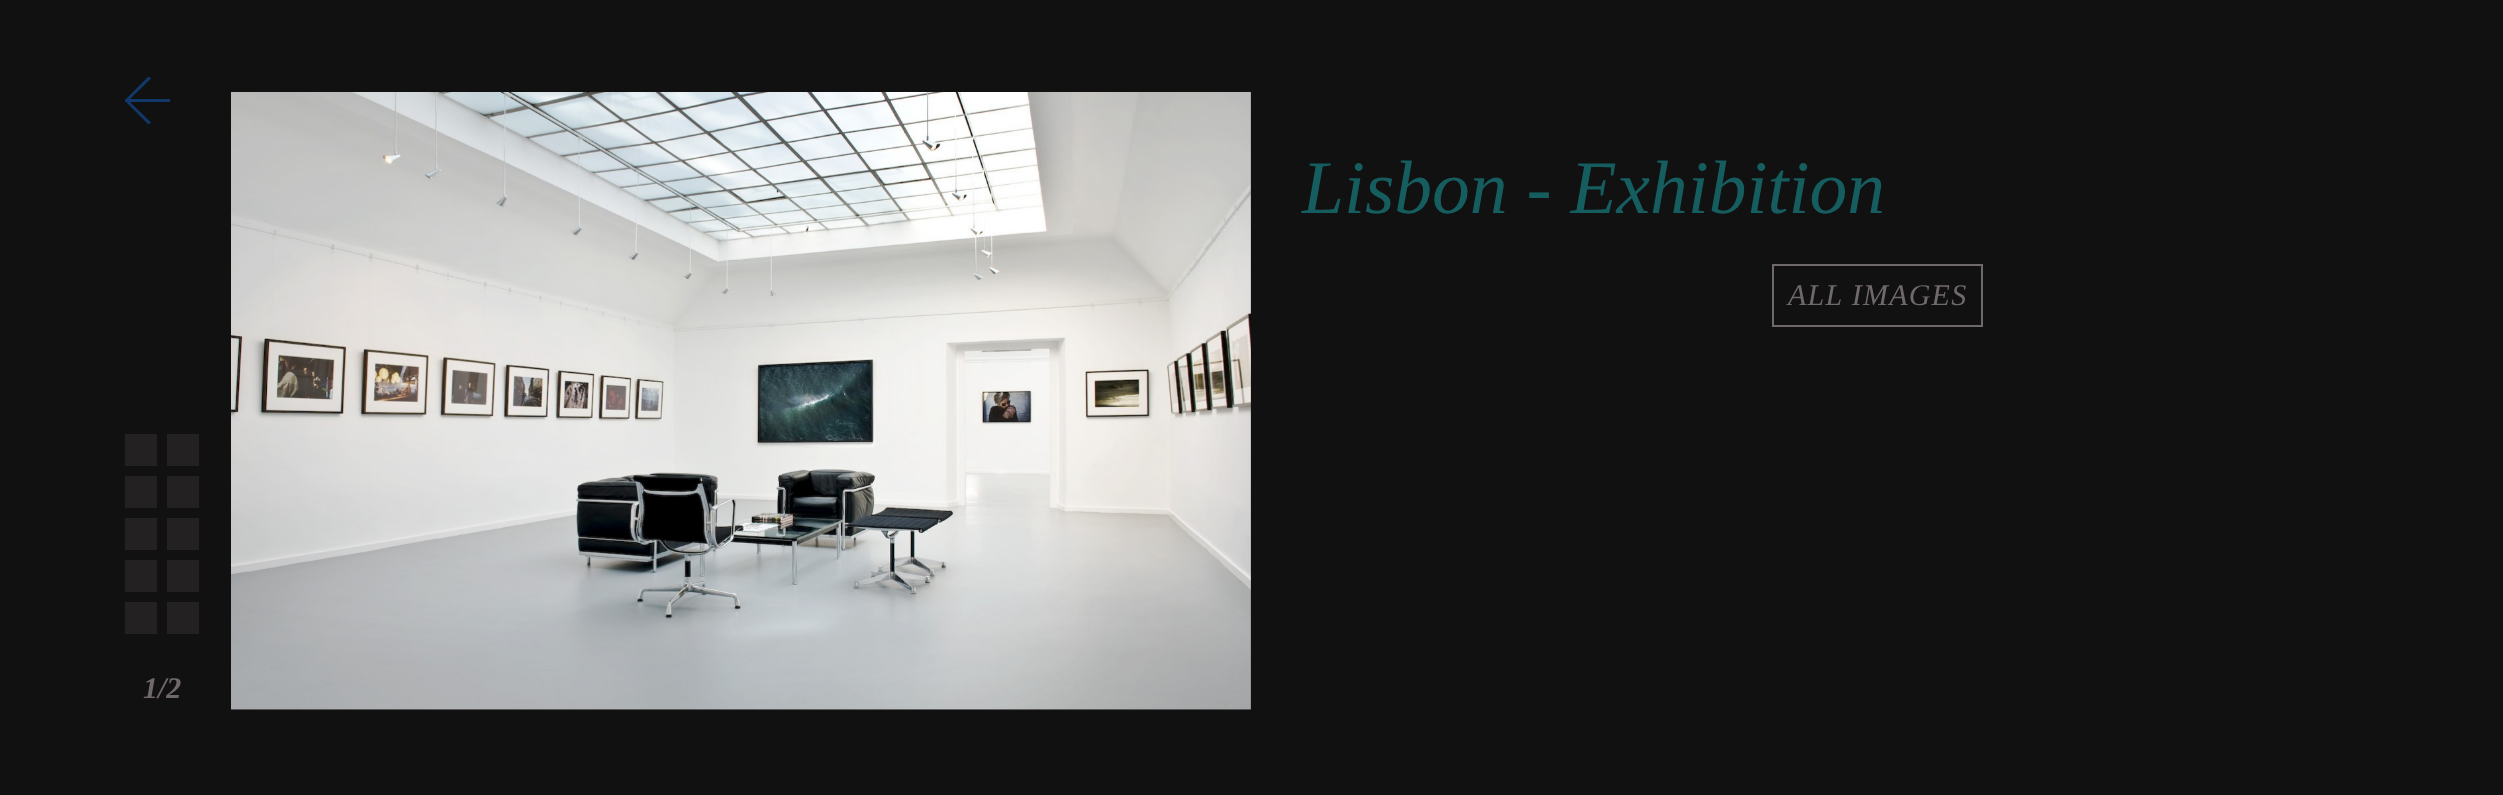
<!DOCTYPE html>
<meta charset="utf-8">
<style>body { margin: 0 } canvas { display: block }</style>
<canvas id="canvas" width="2503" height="795"></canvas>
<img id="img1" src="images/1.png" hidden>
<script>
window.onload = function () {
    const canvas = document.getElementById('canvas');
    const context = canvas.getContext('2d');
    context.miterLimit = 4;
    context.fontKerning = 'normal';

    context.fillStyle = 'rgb(17, 17, 17)';
    context.fillRect(0, 0, 2503, 795);
    context.fillStyle = 'rgb(17, 56, 104)';
    context.fillRect(125, 99, 45, 3);
    context.beginPath();
    context.moveTo(126.5, 98.5);
    context.lineTo(148.5, 76.5);
    context.lineTo(151, 78.5);
    context.lineTo(128.5, 100.5);
    context.closePath();
    context.fill();
    context.beginPath();
    context.moveTo(128.5, 100.5);
    context.lineTo(151, 122.5);
    context.lineTo(148.5, 124.5);
    context.lineTo(126.5, 102.5);
    context.closePath();
    context.fill();
    context.drawImage(document.getElementById('img1'), 231, 92, 1020, 618);
    context.strokeStyle = 'rgb(111, 105, 109)';
    context.lineWidth = 2;
    context.strokeRect(1773, 265, 209, 61);
    context.fillStyle = 'rgb(35, 33, 34)';
    context.fillRect(125, 434, 32, 32);
    context.fillRect(125, 476, 32, 32);
    context.fillRect(125, 518, 32, 32);
    context.fillRect(125, 560, 32, 32);
    context.fillRect(125, 602, 32, 32);
    context.fillRect(167, 434, 32, 32);
    context.fillRect(167, 476, 32, 32);
    context.fillRect(167, 518, 32, 32);
    context.fillRect(167, 560, 32, 32);
    context.fillRect(167, 602, 32, 32);
    context.font = 'italic 75.5px Liberation Serif';
    context.fillStyle = 'rgb(22, 93, 96)';
    context.fillText('Lisbon - Exhibition', 1302, 213);
    context.letterSpacing = '1.25px';
    context.font = 'italic 30px Liberation Serif';
    context.fillStyle = 'rgb(111, 105, 109)';
    context.fillText('ALL IMAGES', 1788, 305);
    context.letterSpacing = '0px';
    context.font = 'italic bold 30px Liberation Serif';
    context.fillText('1/2', 143, 698);
};
</script>
